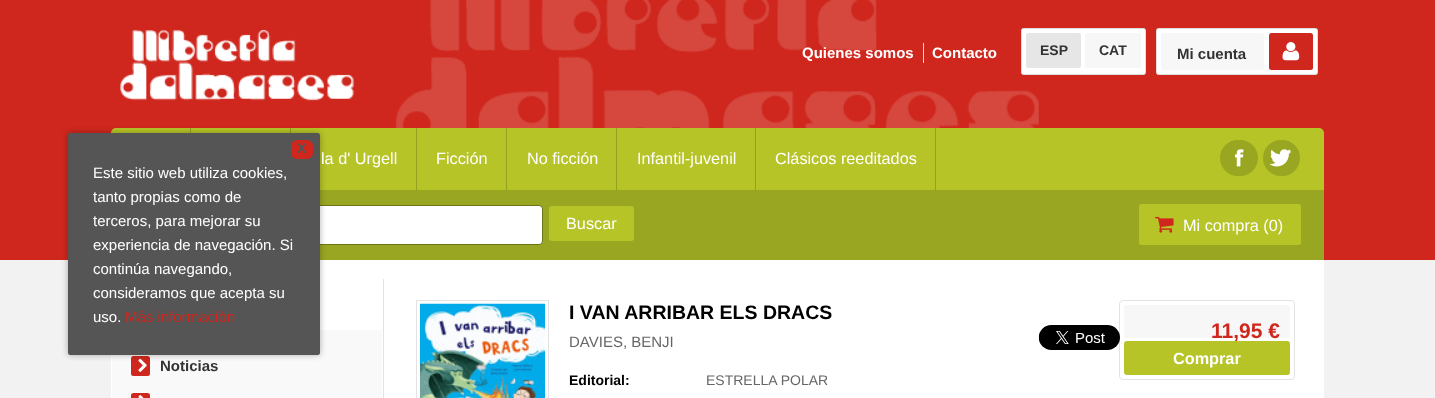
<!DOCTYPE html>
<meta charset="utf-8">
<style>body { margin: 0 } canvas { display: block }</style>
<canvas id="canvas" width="1435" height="398"></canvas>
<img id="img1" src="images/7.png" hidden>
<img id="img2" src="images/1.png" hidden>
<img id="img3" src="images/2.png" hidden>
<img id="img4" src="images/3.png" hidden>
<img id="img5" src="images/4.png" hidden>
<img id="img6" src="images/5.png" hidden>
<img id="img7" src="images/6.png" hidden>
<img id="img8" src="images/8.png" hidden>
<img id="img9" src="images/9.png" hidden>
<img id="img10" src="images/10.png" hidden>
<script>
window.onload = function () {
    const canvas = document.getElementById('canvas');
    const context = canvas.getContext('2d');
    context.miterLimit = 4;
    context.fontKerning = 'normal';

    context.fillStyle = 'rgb(242, 242, 242)';
    context.fillRect(0, 0, 1435, 398);
    context.fillStyle = 'rgb(207, 39, 29)';
    context.fillRect(0, 0, 1435, 260);
    context.fillStyle = 'rgb(182, 196, 39)';
    context.beginPath();
    context.roundRect(111, 128, 1213, 62, [5, 5, 0, 0]);
    context.fill();
    context.fillStyle = 'rgb(148, 160, 32)';
    context.fillRect(190, 128, 1, 5);
    context.fillRect(290, 128, 1, 5);
    context.fillStyle = 'rgb(153, 166, 33)';
    context.fillRect(320, 190, 1004, 70);
    context.fillStyle = 'rgb(255, 255, 255)';
    context.beginPath();
    context.roundRect(130.5, 205.5, 412, 39, 3.5);
    context.fill();
    context.strokeStyle = 'rgb(107, 116, 23)';
    context.stroke();
    context.fillRect(320, 260, 1004, 138);
    context.fillStyle = 'rgb(249, 249, 249)';
    context.beginPath();
    context.rect(111.5, 329.5, 271, 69);
    context.fill();
    context.strokeStyle = 'rgb(255, 255, 255)';
    context.stroke();
    context.fillStyle = 'rgb(207, 39, 29)';
    context.beginPath();
    context.roundRect(131, 356, 19, 20, 2.5);
    context.fill();
    context.drawImage(document.getElementById('img1'), 138, 358, 9, 14);
    context.fillStyle = 'rgba(0, 0, 0, 0.3)';
    context.filter = 'blur(3px)';
    context.beginPath();
    context.roundRect(68, 133, 252, 222, 2.5);
    context.fill();
    context.filter = 'none';
    context.fillStyle = 'rgb(85, 85, 85)';
    context.beginPath();
    context.roundRect(68, 133, 252, 222, 2.5);
    context.fill();
    context.fillStyle = 'rgb(207, 39, 29)';
    context.beginPath();
    context.roundRect(291, 140, 22, 19, 6);
    context.fill();
    context.drawImage(document.getElementById('img2'), 395, 0, 645, 128);
    context.drawImage(document.getElementById('img3'), 120, 30, 234, 71);
    context.fillStyle = 'rgb(221, 221, 221)';
    context.fillRect(923, 43, 1, 20);
    context.fillStyle = 'rgb(255, 255, 255)';
    context.beginPath();
    context.roundRect(1021.5, 28.5, 124, 46, 2);
    context.fill();
    context.strokeStyle = 'rgb(221, 221, 221)';
    context.stroke();
    context.fillStyle = 'rgb(230, 230, 230)';
    context.beginPath();
    context.roundRect(1026, 33, 55, 35, 2.5);
    context.fill();
    context.fillStyle = 'rgb(247, 247, 247)';
    context.beginPath();
    context.roundRect(1085, 33, 56, 35, 2.5);
    context.fill();
    context.fillStyle = 'rgb(255, 255, 255)';
    context.beginPath();
    context.roundRect(1156.5, 28.5, 161, 46, 2);
    context.fill();
    context.stroke();
    context.fillStyle = 'rgb(247, 247, 247)';
    context.beginPath();
    context.roundRect(1161, 33, 103, 37, 2.5);
    context.fill();
    context.fillStyle = 'rgb(207, 39, 29)';
    context.beginPath();
    context.roundRect(1269, 33, 44, 37, 2.5);
    context.fill();
    context.drawImage(document.getElementById('img4'), 1282, 42, 18, 19);
    context.fillStyle = 'rgb(148, 160, 32)';
    context.fillRect(416, 128, 1, 62);
    context.fillRect(506, 128, 1, 62);
    context.fillRect(616, 128, 1, 62);
    context.fillRect(755, 128, 1, 62);
    context.fillRect(935, 128, 1, 62);
    context.fillStyle = 'rgb(153, 166, 33)';
    context.beginPath();
    context.roundRect(1220, 140, 38, 36, 18);
    context.fill();
    context.drawImage(document.getElementById('img5'), 1235, 149, 9, 18);
    context.beginPath();
    context.roundRect(1263, 140, 37, 36, 18);
    context.fill();
    context.drawImage(document.getElementById('img6'), 1270, 149, 21, 18);
    context.fillStyle = 'rgb(182, 196, 39)';
    context.beginPath();
    context.roundRect(549.5, 206.5, 84, 34, 2);
    context.fill();
    context.strokeStyle = 'rgb(182, 196, 39)';
    context.stroke();
    context.beginPath();
    context.roundRect(1139, 204, 162, 41, 2.5);
    context.fill();
    context.drawImage(document.getElementById('img7'), 1155, 216, 19, 17);
    context.fillStyle = 'rgb(227, 227, 227)';
    context.fillRect(383, 279, 1, 119);
    context.fillStyle = 'rgb(207, 39, 29)';
    context.beginPath();
    context.roundRect(131, 393, 19, 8, 2.5);
    context.fill();
    context.drawImage(document.getElementById('img8'), 138, 395, 6, 3);
    context.strokeStyle = 'rgb(227, 227, 227)';
    context.strokeRect(416.5, 300.5, 132, 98);
    context.drawImage(document.getElementById('img9'), 420, 303, 125, 95);
    context.beginPath();
    context.roundRect(1119.5, 300.5, 175, 79, 3.5);
    context.stroke();
    context.drawImage(document.getElementById('img10'), 1038, 325, 82, 25);
    context.fillStyle = 'rgb(247, 247, 247)';
    context.beginPath();
    context.roundRect(1124, 305, 166, 33, 2.5);
    context.fill();
    context.font = 'bold 14px Liberation Sans';
    context.fillStyle = 'rgb(85, 85, 85)';
    context.fillText('X', 297, 153);
    context.font = '15px Liberation Sans';
    context.fillStyle = 'rgb(255, 255, 255)';
    context.fillText('Este sitio web utiliza cookies,', 93, 178);
    context.fillText('tanto propias como de', 93, 202);
    context.fillText('terceros, para mejorar su', 93, 226);
    context.fillText('experiencia de navegación. Si', 93, 250);
    context.fillText('continúa navegando,', 93, 274);
    context.fillText('consideramos que acepta su', 93, 298);
    context.fillText('uso.', 93, 322);
    context.fillStyle = 'rgb(207, 39, 29)';
    context.fillText('Más información', 125, 322);
    context.font = 'bold 15px Liberation Sans';
    context.fillStyle = 'rgb(255, 255, 255)';
    context.fillText('Quienes somos', 802, 58);
    context.fillText('Contacto', 932, 58);
    context.font = 'bold 14px Liberation Sans';
    context.fillStyle = 'rgb(51, 51, 51)';
    context.fillText('ESP', 1040, 55);
    context.fillText('CAT', 1099, 55);
    context.font = 'bold 15px Liberation Sans';
    context.fillText('Mi cuenta', 1177, 59);
    context.font = '16.25px Liberation Sans';
    context.fillStyle = 'rgb(255, 255, 255)';
    context.fillText('la d\' Urgell', 321, 164);
    context.fillText('Ficción', 436, 164);
    context.fillText('No ficción', 527, 164);
    context.fillText('Infantil-juvenil', 637, 164);
    context.fillText('Clásicos reeditados', 775, 164);
    context.fillText('Buscar', 566, 229);
    context.fillText('Mi compra (0)', 1183, 231);
    context.font = 'bold 15px Liberation Sans';
    context.fillStyle = 'rgb(51, 51, 51)';
    context.fillText('Noticias', 160, 371);
    context.font = 'bold 19.5px Liberation Sans';
    context.fillStyle = 'rgb(0, 0, 0)';
    context.fillText('I VAN ARRIBAR ELS DRACS', 569, 319);
    context.font = '15px Liberation Sans';
    context.fillStyle = 'rgb(102, 102, 102)';
    context.fillText('DAVIES, BENJI', 569, 347);
    context.font = 'bold 14px Liberation Sans';
    context.fillStyle = 'rgb(0, 0, 0)';
    context.fillText('Editorial:', 569, 385);
    context.font = '14px Liberation Sans';
    context.fillStyle = 'rgb(102, 102, 102)';
    context.fillText('ESTRELLA POLAR', 706, 385);
    context.font = 'bold 21px Liberation Sans';
    context.fillStyle = 'rgb(207, 39, 29)';
    context.fillText('11,95 €', 1211, 338);
    context.fillStyle = 'rgb(182, 196, 39)';
    context.beginPath();
    context.roundRect(1124.5, 341.5, 165, 33, 2);
    context.fill();
    context.strokeStyle = 'rgb(182, 196, 39)';
    context.stroke();
    context.font = 'bold 16.25px Liberation Sans';
    context.fillStyle = 'rgb(255, 255, 255)';
    context.fillText('Comprar', 1173, 364);
};
</script>
